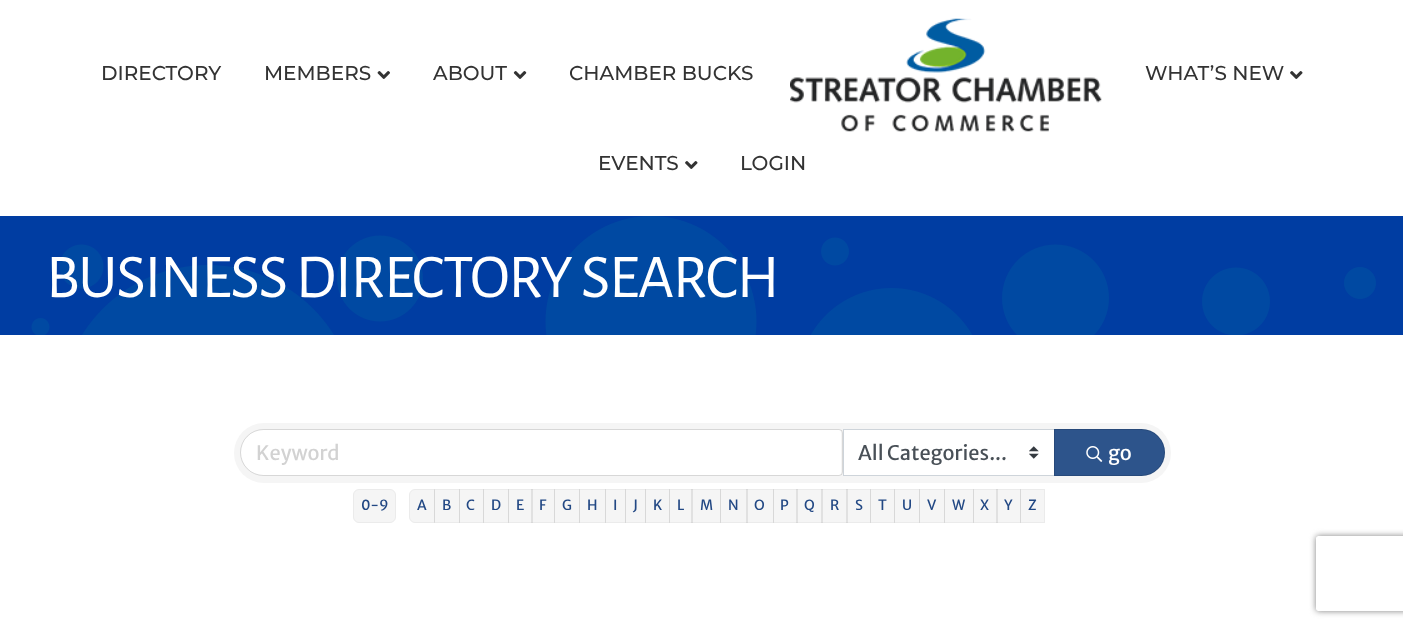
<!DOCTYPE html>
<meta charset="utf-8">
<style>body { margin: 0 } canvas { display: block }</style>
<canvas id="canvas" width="1403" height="628"></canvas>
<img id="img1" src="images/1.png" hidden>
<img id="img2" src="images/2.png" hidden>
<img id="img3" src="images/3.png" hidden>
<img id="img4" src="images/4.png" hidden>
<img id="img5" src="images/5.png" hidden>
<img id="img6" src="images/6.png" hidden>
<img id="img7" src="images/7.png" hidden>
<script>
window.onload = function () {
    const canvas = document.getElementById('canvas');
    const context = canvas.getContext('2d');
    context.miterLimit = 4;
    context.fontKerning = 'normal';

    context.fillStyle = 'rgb(255, 255, 255)';
    context.fillRect(0, 0, 1403, 628);
    context.drawImage(document.getElementById('img1'), 377, 71, 13, 8);
    context.drawImage(document.getElementById('img2'), 513, 71, 14, 8);
    context.drawImage(document.getElementById('img3'), 790, 18, 312, 114);
    context.drawImage(document.getElementById('img4'), 1290, 71, 13, 8);
    context.drawImage(document.getElementById('img4'), 685, 161, 13, 8);
    context.fillStyle = 'rgb(0, 61, 162)';
    context.fillRect(0, 216, 1403, 119);
    context.drawImage(document.getElementById('img5'), 31, 216, 1345, 119);
    context.fillStyle = 'rgb(245, 245, 245)';
    context.beginPath();
    context.roundRect(234, 423, 937, 60, 30);
    context.fill();
    context.fillStyle = 'rgb(255, 255, 255)';
    context.beginPath();
    context.roundRect(241, 430, 600, 45, [22.5, 2.5, 2.5, 22.5]);
    context.fill();
    context.beginPath();
    context.roundRect(240.5, 429.5, 602, 46, [23, 3.5, 3.5, 23]);
    context.strokeStyle = 'rgba(0, 0, 0, 0.12)';
    context.stroke();
    context.fillRect(844, 430, 210, 45);
    context.drawImage(document.getElementById('img6'), 1029, 446, 10, 13);
    context.strokeStyle = 'rgb(206, 212, 218)';
    context.strokeRect(843.5, 429.5, 211, 46);
    context.fillStyle = 'rgb(45, 84, 139)';
    context.beginPath();
    context.roundRect(1054, 429, 111, 47, [0, 23.5, 23.5, 0]);
    context.fill();
    context.beginPath();
    context.roundRect(1054.5, 429.5, 110, 46, [0, 23, 23, 0]);
    context.strokeStyle = 'rgba(0, 0, 0, 0.12)';
    context.stroke();
    context.drawImage(document.getElementById('img7'), 1086, 446, 17, 16);
    context.fillStyle = 'rgb(245, 245, 245)';
    context.beginPath();
    context.roundRect(353.5, 489.5, 42, 33, 5.5);
    context.fill();
    context.strokeStyle = 'rgb(235, 235, 235)';
    context.stroke();
    context.beginPath();
    context.roundRect(409.5, 489.5, 25, 33, [5.5, 0, 0, 5.5]);
    context.fill();
    context.stroke();
    context.fillStyle = 'rgba(0, 0, 0, 0.04)';
    context.fillRect(434, 489, 26, 34);
    context.strokeStyle = 'rgba(0, 0, 0, 0.04)';
    context.strokeRect(434.5, 489.5, 25, 33);
    context.fillRect(459, 489, 25, 34);
    context.strokeRect(459.5, 489.5, 24, 33);
    context.fillRect(483, 489, 26, 34);
    context.strokeRect(483.5, 489.5, 25, 33);
    context.fillRect(508, 489, 25, 34);
    context.strokeRect(508.5, 489.5, 24, 33);
    context.fillRect(531, 489, 24, 34);
    context.strokeRect(531.5, 489.5, 23, 33);
    context.fillRect(554, 489, 26, 34);
    context.strokeRect(554.5, 489.5, 25, 33);
    context.fillRect(579, 489, 27, 34);
    context.strokeRect(579.5, 489.5, 26, 33);
    context.fillRect(605, 489, 21, 34);
    context.strokeRect(605.5, 489.5, 20, 33);
    context.fillRect(625, 489, 21, 34);
    context.strokeRect(625.5, 489.5, 20, 33);
    context.fillRect(645, 489, 25, 34);
    context.strokeRect(645.5, 489.5, 24, 33);
    context.fillRect(669, 489, 24, 34);
    context.strokeRect(669.5, 489.5, 23, 33);
    context.fillRect(691, 489, 30, 34);
    context.strokeRect(691.5, 489.5, 29, 33);
    context.fillRect(720, 489, 28, 34);
    context.strokeRect(720.5, 489.5, 27, 33);
    context.fillRect(746, 489, 28, 34);
    context.strokeRect(746.5, 489.5, 27, 33);
    context.fillRect(773, 489, 25, 34);
    context.strokeRect(773.5, 489.5, 24, 33);
    context.fillRect(796, 489, 27, 34);
    context.strokeRect(796.5, 489.5, 26, 33);
    context.fillRect(821, 489, 27, 34);
    context.strokeRect(821.5, 489.5, 26, 33);
    context.fillRect(846, 489, 25, 34);
    context.strokeRect(846.5, 489.5, 24, 33);
    context.fillRect(870, 489, 25, 34);
    context.strokeRect(870.5, 489.5, 24, 33);
    context.fillRect(894, 489, 26, 34);
    context.strokeRect(894.5, 489.5, 25, 33);
    context.fillRect(919, 489, 26, 34);
    context.strokeRect(919.5, 489.5, 25, 33);
    context.fillRect(944, 489, 30, 34);
    context.strokeRect(944.5, 489.5, 29, 33);
    context.fillRect(973, 489, 25, 34);
    context.strokeRect(973.5, 489.5, 24, 33);
    context.fillRect(996, 489, 25, 34);
    context.strokeRect(996.5, 489.5, 24, 33);
    context.fillRect(1020, 489, 25, 34);
    context.strokeRect(1020.5, 489.5, 24, 33);
    context.save();
    context.beginPath();
    context.moveTo(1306, 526);
    context.lineTo(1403, 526);
    context.lineTo(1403, 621);
    context.lineTo(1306, 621);
    context.closePath();
    context.moveTo(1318.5, 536);
    context.lineTo(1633.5, 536);
    context.bezierCurveTo(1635, 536, 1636, 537, 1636, 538.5);
    context.lineTo(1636, 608.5);
    context.bezierCurveTo(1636, 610, 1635, 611, 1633.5, 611);
    context.lineTo(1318.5, 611);
    context.bezierCurveTo(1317, 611, 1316, 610, 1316, 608.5);
    context.lineTo(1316, 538.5);
    context.bezierCurveTo(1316, 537, 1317, 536, 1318.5, 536);
    context.closePath();
    context.clip('evenodd');
    context.fillStyle = 'rgb(128, 128, 128)';
    context.filter = 'blur(3px)';
    context.beginPath();
    context.roundRect(1316, 536, 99, 75, 2.5);
    context.fill();
    context.filter = 'none';
    context.restore();
    context.font = '500 20px Montserrat';
    context.fillStyle = 'rgb(51, 51, 51)';
    context.fillText('DIRECTORY', 101, 80);
    context.fillText('MEMBERS', 264, 80);
    context.fillText('ABOUT', 433, 80);
    context.fillText('CHAMBER BUCKS', 569, 80);
    context.fillText('WHAT’S NEW', 1145, 80);
    context.fillText('EVENTS', 598, 170);
    context.fillText('LOGIN', 740, 170);
    context.letterSpacing = '-1.25px';
    context.font = '62.5px Alegreya Sans';
    context.fillStyle = 'rgb(255, 255, 255)';
    context.fillText('BUSINESS DIRECTORY SEARCH', 46, 297);
    context.letterSpacing = '0px';
    context.font = '20px Merriweather Sans';
    context.fillStyle = 'rgb(210, 210, 210)';
    context.fillText('Keyword', 256, 460);
    context.fillStyle = 'rgb(73, 80, 87)';
    context.fillText('All Categories...', 858, 460);
    context.fillStyle = 'rgb(255, 255, 255)';
    context.fillText('go', 1108, 460);
    context.font = '14px Merriweather Sans';
    context.fillStyle = 'rgb(34, 72, 132)';
    context.fillText('0-9', 361, 510);
    context.fillText('A', 417, 510);
    context.fillText('B', 442, 510);
    context.fillText('C', 466, 510);
    context.fillText('D', 491, 510);
    context.fillText('E', 516, 510);
    context.fillText('F', 539, 510);
    context.fillText('G', 562, 510);
    context.fillText('H', 587, 510);
    context.fillText('I', 613, 510);
    context.fillText('J', 633, 510);
    context.fillText('K', 653, 510);
    context.fillText('L', 677, 510);
    context.fillText('M', 700, 510);
    context.fillText('N', 728, 510);
    context.fillText('O', 754, 510);
    context.fillText('P', 780, 510);
    context.fillText('Q', 804, 510);
    context.fillText('R', 830, 510);
    context.fillText('S', 855, 510);
    context.fillText('T', 878, 510);
    context.fillText('U', 902, 510);
    context.fillText('V', 927, 510);
    context.fillText('W', 952, 510);
    context.fillText('X', 980, 510);
    context.fillText('Y', 1004, 510);
    context.fillText('Z', 1028, 510);
};
</script>
